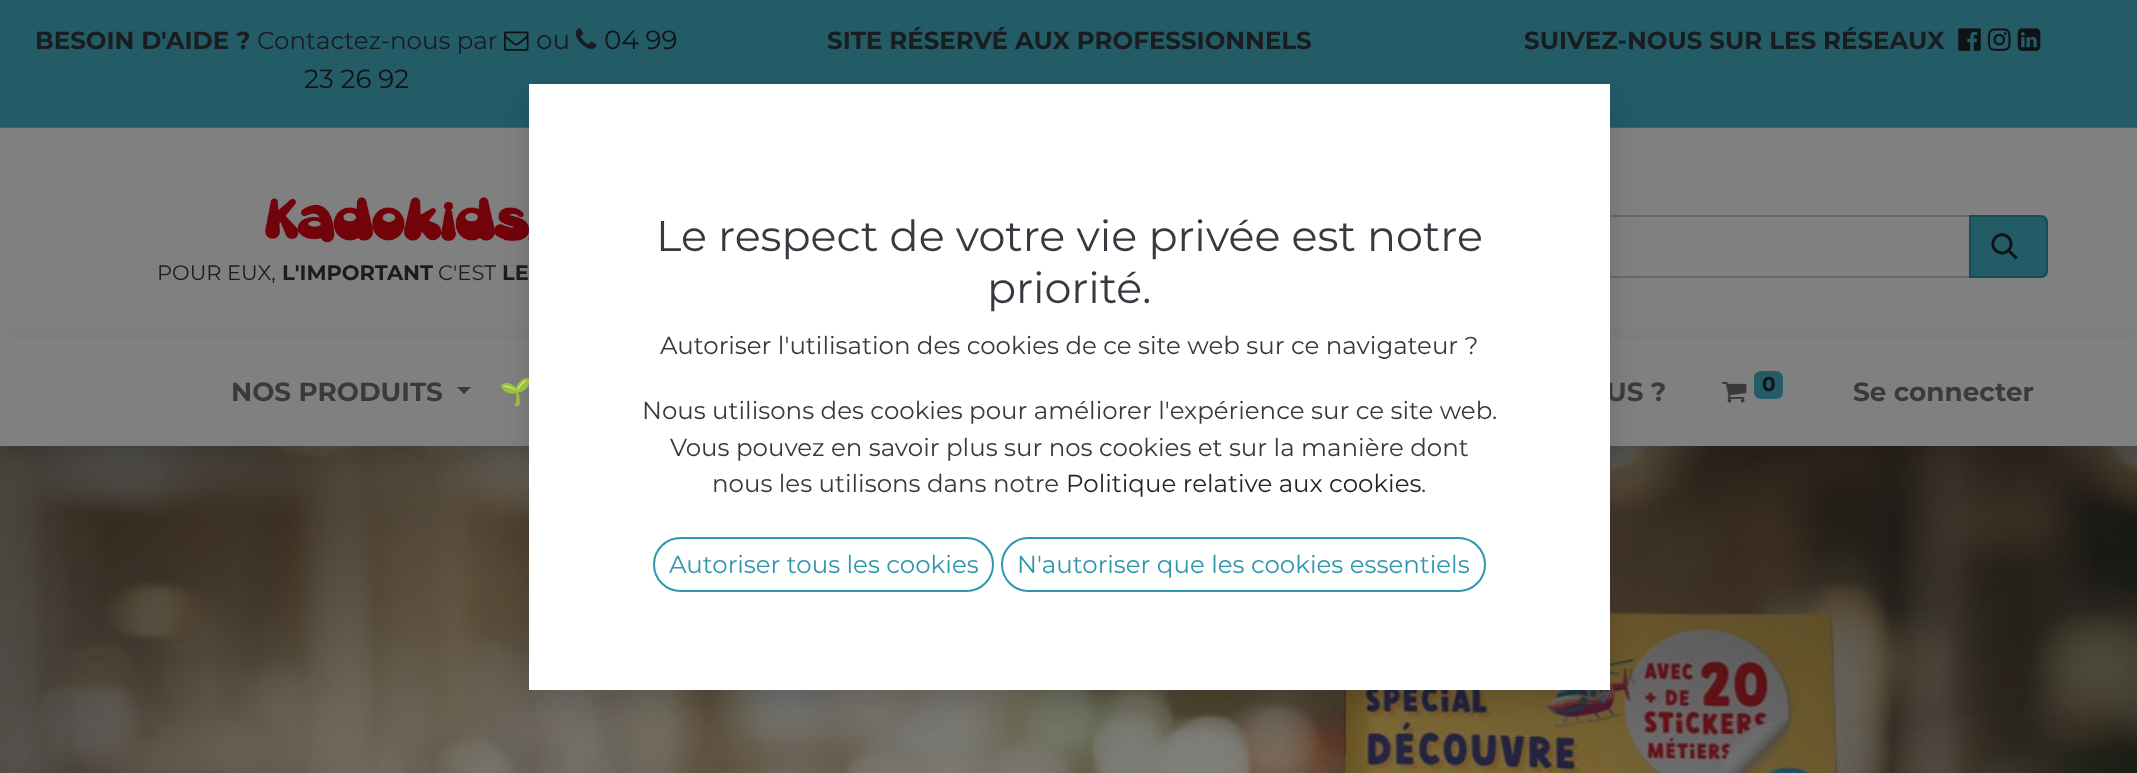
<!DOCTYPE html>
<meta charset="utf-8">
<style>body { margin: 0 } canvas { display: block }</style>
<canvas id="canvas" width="2137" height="773"></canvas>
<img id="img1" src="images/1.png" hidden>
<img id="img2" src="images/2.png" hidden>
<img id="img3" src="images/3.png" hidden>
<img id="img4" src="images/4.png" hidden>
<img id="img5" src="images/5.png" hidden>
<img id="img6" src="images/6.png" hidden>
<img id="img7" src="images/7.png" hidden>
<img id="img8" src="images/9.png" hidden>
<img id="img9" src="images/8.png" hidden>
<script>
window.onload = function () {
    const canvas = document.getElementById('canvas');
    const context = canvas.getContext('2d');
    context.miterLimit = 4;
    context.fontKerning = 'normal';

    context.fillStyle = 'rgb(128, 128, 128)';
    context.fillRect(0, 0, 2137, 773);
    context.fillStyle = 'rgb(35, 91, 103)';
    context.fillRect(0, 0, 2137, 127);
    context.drawImage(document.getElementById('img1'), 504, 31, 25, 20);
    context.drawImage(document.getElementById('img2'), 575, 28, 22, 21);
    context.drawImage(document.getElementById('img3'), 1958, 28, 23, 23);
    context.drawImage(document.getElementById('img4'), 1988, 28, 23, 23);
    context.drawImage(document.getElementById('img5'), 2017, 28, 24, 23);
    context.fillStyle = 'rgb(58, 100, 109)';
    context.fillRect(0, 127, 2137, 1);
    context.drawImage(document.getElementById('img6'), 265, 197, 264, 46);
    context.strokeStyle = 'rgb(103, 106, 109)';
    context.lineWidth = 2;
    context.strokeRect(1431, 216, 539, 61);
    context.fillStyle = 'rgb(35, 91, 103)';
    context.beginPath();
    context.roundRect(1970, 216, 77, 61, [0, 6, 6, 0]);
    context.fill();
    context.strokeStyle = 'rgb(24, 76, 86)';
    context.stroke();
    context.drawImage(document.getElementById('img7'), 1991, 233, 27, 27);
    context.drawImage(document.getElementById('img8'), 0, 446, 2137, 327);
    context.save();
    context.beginPath();
    context.moveTo(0, 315);
    context.lineTo(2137, 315);
    context.lineTo(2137, 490);
    context.lineTo(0, 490);
    context.closePath();
    context.moveTo(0, 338);
    context.lineTo(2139, 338);
    context.lineTo(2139, 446);
    context.lineTo(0, 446);
    context.closePath();
    context.clip('evenodd');
    context.fillStyle = 'rgba(0, 0, 0, 0.15)';
    context.filter = 'blur(10.5px)';
    context.beginPath();
    context.rect(0, 348, 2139, 109);
    context.fill();
    context.filter = 'none';
    context.restore();
    context.fillStyle = 'rgb(58, 58, 58)';
    context.beginPath();
    context.moveTo(457, 387);
    context.lineTo(471, 387);
    context.lineTo(464, 394);
    context.closePath();
    context.fill();
    context.drawImage(document.getElementById('img9'), 1722, 382, 25, 21);
    context.fillStyle = 'rgb(35, 91, 103)';
    context.beginPath();
    context.roundRect(1754, 371, 29, 28, 7);
    context.fill();
    context.fillStyle = 'rgba(0, 0, 0, 0.15)';
    context.filter = 'blur(14px)';
    context.beginPath();
    context.rect(529, 98, 1081, 606);
    context.fill();
    context.filter = 'none';
    context.font = 'bold 24.5px Montserrat';
    context.fillStyle = 'rgb(26, 29, 32)';
    context.fillText('BESOIN D\'AIDE ?', 35, 49);
    context.font = '24.5px Montserrat';
    context.fillText('Contactez-nous par', 257, 49);
    context.font = '26.25px Montserrat';
    context.fillText('ou', 536, 49);
    context.fillStyle = 'rgb(17, 19, 21)';
    context.fillText('04 99', 604, 49);
    context.fillText('23 26 92', 304, 88);
    context.font = 'bold 24.5px Montserrat';
    context.fillStyle = 'rgb(26, 29, 32)';
    context.fillText('SITE RÉSERVÉ AUX PROFESSIONNELS', 827, 49);
    context.fillText('SUIVEZ-NOUS SUR LES RÉSEAUX', 1524, 49);
    context.font = '21px Montserrat';
    context.fillText('POUR EUX,', 157, 280);
    context.font = 'bold 21px Montserrat';
    context.fillText('L\'IMPORTANT', 282, 280);
    context.font = '21px Montserrat';
    context.fillText('C\'EST', 438, 280);
    context.font = 'bold 21px Montserrat';
    context.fillText('LE', 502, 280);
    context.font = 'bold 26.25px Montserrat';
    context.fillStyle = 'rgb(58, 58, 58)';
    context.fillText('NOS PRODUITS', 231, 401);
    context.font = 'bold 26.25px Noto Color Emoji';
    context.fillText('🌱', 499, 401);
    context.font = 'bold 26.25px Montserrat';
    context.fillText('US ?', 1606, 401);
    context.font = 'bold 20px Montserrat';
    context.fillStyle = 'rgb(17, 19, 21)';
    context.fillText('0', 1762, 391);
    context.font = 'bold 26.25px Montserrat';
    context.fillStyle = 'rgb(58, 58, 58)';
    context.fillText('Se connecter', 1853, 401);
    context.fillStyle = 'rgb(255, 255, 255)';
    context.fillRect(529, 84, 1081, 606);
    context.font = '42.9px Montserrat';
    context.fillStyle = 'rgb(52, 58, 64)';
    context.fillText('Le respect de votre vie privée est notre', 656, 251);
    context.fillText('priorité.', 987, 303);
    context.font = '24.5px Montserrat';
    context.fillText('Autoriser l\'utilisation des cookies de ce site web sur ce navigateur ?', 660, 354);
    context.fillText('Nous utilisons des cookies pour améliorer l\'expérience sur ce site web.', 642, 419);
    context.fillText('Vous pouvez en savoir plus sur nos cookies et sur la manière dont', 670, 456);
    context.fillText('nous les utilisons dans notre', 712, 492);
    context.fillStyle = 'rgb(33, 37, 41)';
    context.fillText('Politique relative aux cookies', 1066, 492);
    context.fillStyle = 'rgb(52, 58, 64)';
    context.fillText('.', 1421, 492);
    context.beginPath();
    context.roundRect(654, 538, 339, 53, 26.5);
    context.strokeStyle = 'rgb(47, 151, 172)';
    context.stroke();
    context.fillStyle = 'rgb(47, 151, 172)';
    context.fillText('Autoriser tous les cookies', 669, 573);
    context.beginPath();
    context.roundRect(1002, 538, 483, 53, 26.5);
    context.stroke();
    context.fillText('N\'autoriser que les cookies essentiels', 1017, 573);
};
</script>
